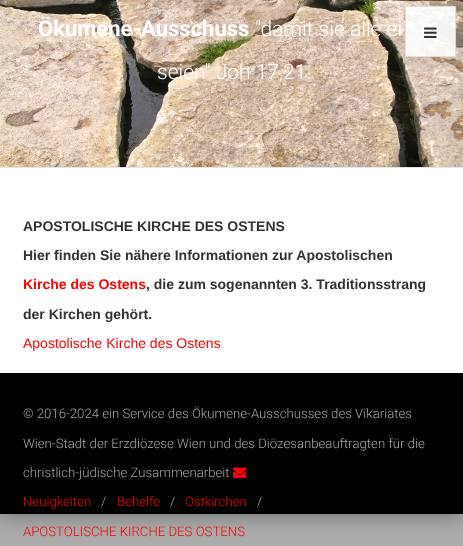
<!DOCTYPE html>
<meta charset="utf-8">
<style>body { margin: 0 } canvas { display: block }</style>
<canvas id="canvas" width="463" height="546"></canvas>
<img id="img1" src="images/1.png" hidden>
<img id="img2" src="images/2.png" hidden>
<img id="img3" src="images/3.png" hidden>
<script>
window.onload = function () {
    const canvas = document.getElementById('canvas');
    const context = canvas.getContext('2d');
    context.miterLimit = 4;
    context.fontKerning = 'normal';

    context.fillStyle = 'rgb(170, 170, 170)';
    context.fillRect(0, 0, 463, 546);
    context.fillStyle = 'rgba(0, 0, 0, 0.4)';
    context.filter = 'blur(10px)';
    context.beginPath();
    context.rect(0, -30, 463, 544);
    context.fill();
    context.filter = 'none';
    context.fillStyle = 'rgb(255, 255, 255)';
    context.fillRect(0, 168, 463, 205);
    context.drawImage(document.getElementById('img1'), 0, 0, 463, 167);
    context.fillStyle = 'rgb(227, 227, 227)';
    context.fillRect(0, 167, 463, 1);
    context.fillStyle = 'rgb(0, 0, 0)';
    context.fillRect(0, 373, 463, 141);
    context.drawImage(document.getElementById('img2'), 233, 467, 14, 11);
    context.fillStyle = 'rgba(255, 255, 255, 0.9)';
    context.fillRect(405, 6, 51, 51);
    context.strokeStyle = 'rgba(144, 144, 144, 0.25)';
    context.strokeRect(405.5, 6.5, 50, 50);
    context.drawImage(document.getElementById('img3'), 424, 27, 13, 11);
    context.font = 'bold 22px Roboto';
    context.fillStyle = 'rgb(255, 255, 255)';
    context.fillText('Ökumene-Ausschuss', 38, 36);
    context.font = '300 21px Roboto';
    context.fillText('"damit sie alle ei', 255, 36);
    context.fillText('seien" Joh 17,21', 157, 79);
    context.font = 'bold 14px Liberation Sans';
    context.fillStyle = 'rgb(51, 51, 51)';
    context.fillText('APOSTOLISCHE KIRCHE DES OSTENS', 23, 231);
    context.fillText('Hier finden Sie nähere Informationen zur Apostolischen', 23, 260);
    context.fillStyle = 'rgb(255, 0, 0)';
    context.fillText('Kirche des Ostens', 23, 289);
    context.fillStyle = 'rgb(51, 51, 51)';
    context.fillText(', die zum sogenannten 3. Traditionsstrang', 146, 289);
    context.fillText('der Kirchen gehört.', 23, 319);
    context.font = '14px Liberation Sans';
    context.fillStyle = 'rgb(255, 0, 0)';
    context.fillText('Apostolische Kirche des Ostens', 23, 348);
    context.font = '300 13.2px Roboto';
    context.fillStyle = 'rgb(167, 167, 167)';
    context.fillText('© 2016-2024 ein Service des Ökumene-Ausschusses des Vikariates', 23, 418);
    context.fillText('Wien-Stadt der Erzdiözese Wien und des Diözesanbeauftragten für die', 23, 448);
    context.fillText('christlich-jüdische Zusammenarbeit', 23, 477);
    context.fillStyle = 'rgb(255, 0, 0)';
    context.fillText('Neuigkeiten', 23, 506);
    context.fillStyle = 'rgb(167, 167, 167)';
    context.fillText('/', 101, 506);
    context.fillStyle = 'rgb(255, 0, 0)';
    context.fillText('Behelfe', 117, 506);
    context.fillStyle = 'rgb(167, 167, 167)';
    context.fillText('/', 170, 506);
    context.fillStyle = 'rgb(255, 0, 0)';
    context.fillText('Ostkirchen', 185, 506);
    context.fillStyle = 'rgb(167, 167, 167)';
    context.fillText('/', 257, 506);
    context.fillStyle = 'rgb(255, 0, 0)';
    context.fillText('APOSTOLISCHE KIRCHE DES OSTENS', 23, 536);
};
</script>
